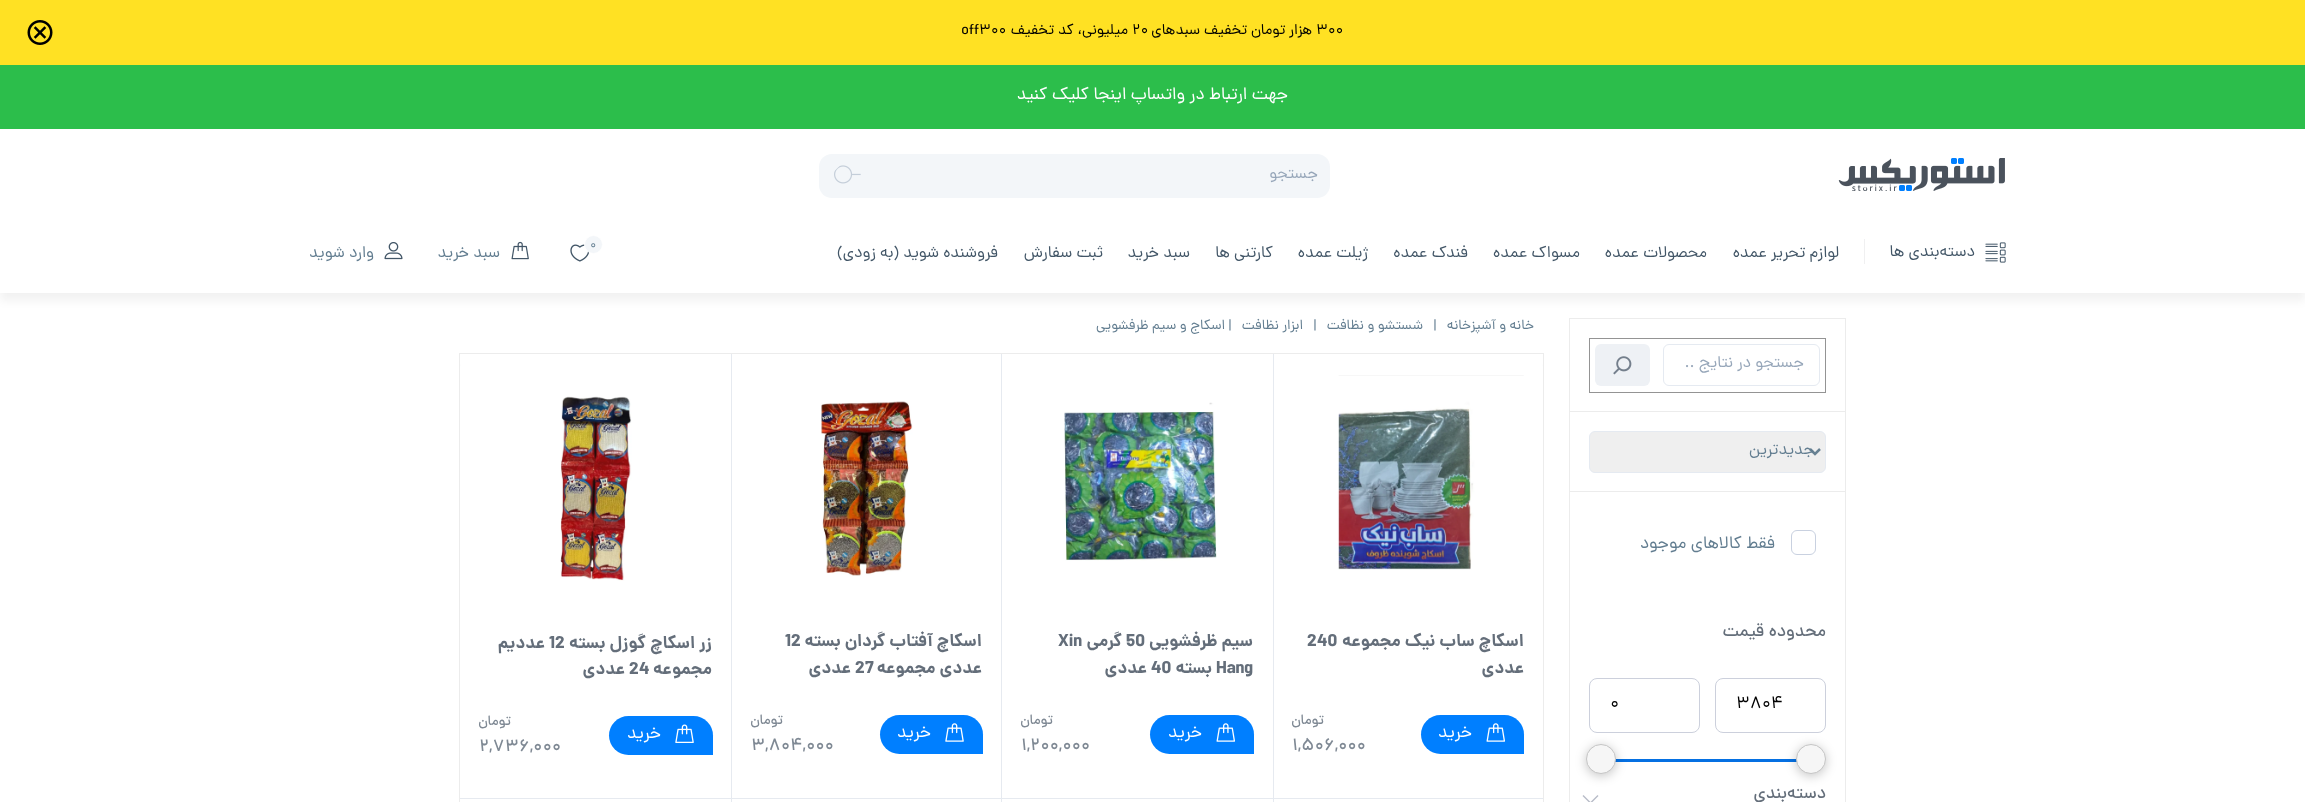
<!DOCTYPE html>
<meta charset="utf-8">
<style>body { margin: 0 } canvas { display: block }</style>
<canvas id="canvas" width="2305" height="802"></canvas>
<img id="img1" src="images/1.png" hidden>
<img id="img2" src="images/2.png" hidden>
<img id="img3" src="images/3.png" hidden>
<img id="img4" src="images/4.png" hidden>
<img id="img5" src="images/5.png" hidden>
<img id="img6" src="images/6.png" hidden>
<img id="img7" src="images/7.png" hidden>
<img id="img8" src="images/8.png" hidden>
<img id="img9" src="images/9.png" hidden>
<img id="img10" src="images/10.png" hidden>
<img id="img11" src="images/11.png" hidden>
<img id="img12" src="images/12.png" hidden>
<img id="img13" src="images/13.png" hidden>
<img id="img14" src="images/14.png" hidden>
<img id="img15" src="images/15.png" hidden>
<script>
window.onload = function () {
    const canvas = document.getElementById('canvas');
    const context = canvas.getContext('2d');
    context.miterLimit = 4;
    context.fontKerning = 'normal';

    context.fillStyle = 'rgb(255, 255, 255)';
    context.fillRect(0, 0, 2305, 802);
    context.fillStyle = 'rgba(0, 0, 0, 0.05)';
    context.filter = 'blur(4.5px)';
    context.beginPath();
    context.rect(0, 74, 2305, 227);
    context.fill();
    context.filter = 'none';
    context.fillStyle = 'rgb(255, 225, 35)';
    context.fillRect(0, 0, 2305, 65);
    context.drawImage(document.getElementById('img1'), 27, 20, 26, 25);
    context.fillStyle = 'rgb(44, 190, 75)';
    context.fillRect(0, 65, 2305, 64);
    context.fillStyle = 'rgb(255, 255, 255)';
    context.fillRect(0, 129, 2305, 164);
    context.drawImage(document.getElementById('img2'), 1838, 158, 167, 33);
    context.fillStyle = 'rgb(243, 246, 249)';
    context.beginPath();
    context.roundRect(819, 154, 511, 44, 13);
    context.fill();
    context.drawImage(document.getElementById('img3'), 834, 165, 27, 19);
    context.drawImage(document.getElementById('img4'), 1985, 242, 21, 21);
    context.fillStyle = 'rgb(240, 240, 241)';
    context.fillRect(1864, 239, 1, 25);
    context.drawImage(document.getElementById('img5'), 570, 244, 20, 18);
    context.fillStyle = 'rgb(243, 246, 249)';
    context.beginPath();
    context.arc(593.5, 244.5, 9, 0, 2 * Math.PI);
    context.fill();
    context.strokeStyle = 'rgb(255, 255, 255)';
    context.stroke();
    context.drawImage(document.getElementById('img6'), 511, 241, 18, 19);
    context.drawImage(document.getElementById('img7'), 384, 242, 19, 18);
    context.fillStyle = 'rgb(236, 236, 236)';
    context.fillRect(1845, 318, 1, 484);
    context.fillRect(1569, 318, 1, 484);
    context.fillRect(1570, 318, 275, 1);
    context.strokeStyle = 'rgb(148, 148, 148)';
    context.strokeRect(1589.5, 338.5, 236, 54);
    context.beginPath();
    context.roundRect(1663.5, 344.5, 156, 41, 5.5);
    context.strokeStyle = 'rgb(229, 234, 241)';
    context.stroke();
    context.fillStyle = 'rgb(238, 241, 245)';
    context.beginPath();
    context.roundRect(1595, 344, 55, 42, 6);
    context.fill();
    context.drawImage(document.getElementById('img8'), 1613, 356, 19, 19);
    context.fillStyle = 'rgb(236, 236, 236)';
    context.fillRect(1570, 411, 275, 1);
    context.fillStyle = 'rgb(239, 239, 239)';
    context.beginPath();
    context.roundRect(1589.5, 431.5, 236, 41, 5.5);
    context.fill();
    context.stroke();
    context.beginPath();
    context.moveTo(1810, 449);
    context.lineTo(1815, 454);
    context.lineTo(1820, 449);
    context.strokeStyle = 'rgb(103, 129, 146)';
    context.lineWidth = 2.5;
    context.stroke();
    context.fillStyle = 'rgb(236, 236, 236)';
    context.fillRect(1570, 491, 275, 1);
    context.beginPath();
    context.roundRect(1791.5, 530.5, 24, 24, 5.5);
    context.strokeStyle = 'rgb(201, 209, 224)';
    context.lineWidth = 1;
    context.stroke();
    context.beginPath();
    context.roundRect(1715.5, 678.5, 110, 54, 7.5);
    context.strokeStyle = 'rgb(204, 208, 220)';
    context.stroke();
    context.beginPath();
    context.roundRect(1589.5, 678.5, 110, 54, 7.5);
    context.stroke();
    context.fillStyle = 'rgb(5, 112, 226)';
    context.fillRect(1615, 759, 182, 3);
    context.fillStyle = 'rgba(0, 0, 0, 0.23)';
    context.filter = 'blur(5.5px)';
    context.beginPath();
    context.roundRect(1796, 746, 30, 30, 15);
    context.fill();
    context.filter = 'none';
    context.fillStyle = 'rgb(246, 246, 246)';
    context.beginPath();
    context.arc(1811, 759, 14.5, 0, 2 * Math.PI);
    context.fill();
    context.strokeStyle = 'rgb(197, 197, 197)';
    context.stroke();
    context.fillStyle = 'rgba(0, 0, 0, 0.23)';
    context.filter = 'blur(5.5px)';
    context.beginPath();
    context.roundRect(1586, 746, 30, 30, 15);
    context.fill();
    context.filter = 'none';
    context.fillStyle = 'rgb(246, 246, 246)';
    context.beginPath();
    context.arc(1601, 759, 14.5, 0, 2 * Math.PI);
    context.fill();
    context.stroke();
    context.fillStyle = 'rgb(184, 188, 200)';
    context.beginPath();
    context.moveTo(1590.5, 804);
    context.lineTo(1582.5, 796);
    context.lineTo(1583.5, 795);
    context.lineTo(1591.5, 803);
    context.closePath();
    context.fill();
    context.beginPath();
    context.moveTo(1590.5, 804);
    context.lineTo(1589.5, 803);
    context.lineTo(1597.5, 795);
    context.lineTo(1598.5, 796);
    context.closePath();
    context.fill();
    context.fillStyle = 'rgb(236, 236, 236)';
    context.fillRect(459, 353, 1085, 1);
    context.fillRect(1543, 353, 1, 449);
    context.fillRect(459, 353, 1, 449);
    context.fillStyle = 'rgba(82, 99, 116, 0.13)';
    context.filter = 'blur(0.5px)';
    context.beginPath();
    context.roundRect(460, 356, 1083, 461, 13);
    context.fill();
    context.filter = 'none';
    context.fillStyle = 'rgb(255, 255, 255)';
    context.beginPath();
    context.roundRect(460, 354, 1083, 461, 13);
    context.fill();
    context.fillStyle = 'rgb(230, 234, 240)';
    context.fillRect(460, 798, 1083, 1);
    context.fillRect(1273, 354, 1, 448);
    context.drawImage(document.getElementById('img9'), 1337, 375, 187, 195);
    context.fillStyle = 'rgb(0, 127, 255)';
    context.beginPath();
    context.roundRect(1421, 715, 103, 39, [19.5, 19.5, 0, 19.5]);
    context.fill();
    context.drawImage(document.getElementById('img10'), 1486, 723, 19, 19);
    context.fillStyle = 'rgb(230, 234, 240)';
    context.fillRect(1001, 354, 1, 448);
    context.drawImage(document.getElementById('img11'), 1064, 402, 153, 159);
    context.fillStyle = 'rgb(0, 127, 255)';
    context.beginPath();
    context.roundRect(1150, 715, 104, 39, [19.5, 19.5, 0, 19.5]);
    context.fill();
    context.drawImage(document.getElementById('img10'), 1216, 723, 19, 19);
    context.fillStyle = 'rgb(230, 234, 240)';
    context.fillRect(731, 354, 1, 448);
    context.drawImage(document.getElementById('img12'), 821, 401, 92, 175);
    context.fillStyle = 'rgb(0, 127, 255)';
    context.beginPath();
    context.roundRect(880, 715, 103, 39, [19.5, 19.5, 0, 19.5]);
    context.fill();
    context.drawImage(document.getElementById('img13'), 945, 723, 19, 19);
    context.drawImage(document.getElementById('img14'), 560, 396, 72, 185);
    context.beginPath();
    context.roundRect(609, 716, 104, 39, [19.5, 19.5, 0, 19.5]);
    context.fill();
    context.drawImage(document.getElementById('img15'), 675, 724, 19, 19);
    context.font = '15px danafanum';
    context.fillStyle = 'rgb(0, 0, 0)';
    context.fillText('300', 1316, 34);
    context.direction = 'rtl';
    context.fillText('هزار تومان تخفیف سبدهای', 1312, 34);
    context.direction = 'ltr';
    context.fillText('20', 1132, 34);
    context.direction = 'rtl';
    context.fillText('میلیونی، کد تخفیف', 1128, 34);
    context.direction = 'ltr';
    context.fillText('off300', 961, 34);
    context.direction = 'rtl';
    context.font = '17.5px danafanum';
    context.fillStyle = 'rgb(255, 255, 255)';
    context.fillText('جهت ارتباط در واتساپ اینجا کلیک کنید', 1288, 99);
    context.font = '16.25px danafanum';
    context.fillStyle = 'rgb(150, 166, 185)';
    context.fillText('جستجو', 1318, 178);
    context.fillStyle = 'rgb(66, 86, 103)';
    context.fillText('دسته‌بندی ها', 1975, 256);
    context.fillText('لوازم تحریر عمده', 1839, 257);
    context.fillText('محصولات عمده', 1707, 257);
    context.fillText('مسواک عمده', 1580, 257);
    context.fillText('فندک عمده', 1468, 257);
    context.fillText('ژیلت عمده', 1368, 257);
    context.fillText('کارتنی ها', 1273, 257);
    context.fillText('سبد خرید', 1190, 257);
    context.fillText('ثبت سفارش', 1103, 257);
    context.fillText('فروشنده شوید (به زودی)', 998, 257);
    context.direction = 'ltr';
    context.font = '12px danafanum';
    context.fillStyle = 'rgb(98, 125, 144)';
    context.fillText('0', 590, 248);
    context.direction = 'rtl';
    context.font = '16.25px danafanum';
    context.fillText('سبد خرید', 500, 257);
    context.fillText('وارد شوید', 374, 257);
    context.save();
    context.beginPath();
    context.rect(1684, 353, 120, 23);
    context.clip();
    context.fillStyle = 'rgb(150, 166, 185)';
    context.fillText('جستجو در نتایج ...', 1804, 367);
    context.restore();
    context.fillText('جدیدترین', 1814, 454);
    context.font = '17.5px danafanum';
    context.fillText('فقط کالاهای موجود', 1775, 548);
    context.font = '500 17.5px danafanum';
    context.fillStyle = 'rgb(100, 110, 122)';
    context.fillText('محدوده قیمت', 1826, 636);
    context.direction = 'ltr';
    context.font = '17.5px danafanum';
    context.fillStyle = 'rgb(0, 0, 0)';
    context.fillText('3804', 1736, 708);
    context.fillText('0', 1610, 708);
    context.direction = 'rtl';
    context.font = '500 17.5px danafanum';
    context.fillStyle = 'rgb(100, 110, 122)';
    context.fillText('دسته‌بندی', 1826, 798);
    context.font = '14px danafanum';
    context.fillStyle = 'rgb(98, 125, 144)';
    context.fillText('خانه و آشپزخانه', 1534, 329);
    context.direction = 'ltr';
    context.fillText('|', 1433, 329);
    context.direction = 'rtl';
    context.fillText('شستشو و نظافت', 1423, 329);
    context.direction = 'ltr';
    context.fillText('|', 1313, 329);
    context.direction = 'rtl';
    context.fillText('ابزار نظافت', 1303, 329);
    context.direction = 'ltr';
    context.fillText('|', 1228, 329);
    context.direction = 'rtl';
    context.fillText('اسکاج و سیم ظرفشویی', 1225, 329);
    context.font = 'bold 17.5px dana';
    context.fillStyle = 'rgb(100, 110, 122)';
    context.fillText('اسکاچ ساب نیک مجموعه', 1524, 646);
    context.direction = 'ltr';
    context.fillText('240', 1307, 646);
    context.direction = 'rtl';
    context.fillText('عددی', 1524, 673);
    context.letterSpacing = '-0.5px';
    context.font = '17.5px danafanum';
    context.fillStyle = 'rgb(255, 255, 255)';
    context.fillText('خرید', 1472, 737);
    context.letterSpacing = '0px';
    context.font = '500 14px danafanum';
    context.fillStyle = 'rgb(127, 137, 148)';
    context.fillText('تومان', 1324, 724);
    context.direction = 'ltr';
    context.font = '500 17.5px danafanum';
    context.fillText('1,506,000', 1292, 750);
    context.direction = 'rtl';
    context.font = 'bold 17.5px dana';
    context.fillStyle = 'rgb(100, 110, 122)';
    context.fillText('سیم ظرفشویی', 1253, 646);
    context.direction = 'ltr';
    context.fillText('50', 1126, 646);
    context.direction = 'rtl';
    context.fillText('گرمی', 1122, 646);
    context.direction = 'ltr';
    context.fillText('Xin', 1058, 646);
    context.fillText('Hang', 1216, 673);
    context.direction = 'rtl';
    context.fillText('بسته', 1212, 673);
    context.direction = 'ltr';
    context.fillText('40', 1151, 673);
    context.direction = 'rtl';
    context.fillText('عددی', 1147, 673);
    context.letterSpacing = '-0.5px';
    context.font = '17.5px danafanum';
    context.fillStyle = 'rgb(255, 255, 255)';
    context.fillText('خرید', 1202, 737);
    context.letterSpacing = '0px';
    context.font = '500 14px danafanum';
    context.fillStyle = 'rgb(127, 137, 148)';
    context.fillText('تومان', 1053, 724);
    context.direction = 'ltr';
    context.font = '500 17.5px danafanum';
    context.fillText('1,200,000', 1021, 750);
    context.direction = 'rtl';
    context.font = 'bold 17.5px dana';
    context.fillStyle = 'rgb(100, 110, 122)';
    context.fillText('اسکاچ آفتاب گردان بسته', 982, 646);
    context.direction = 'ltr';
    context.fillText('12', 785, 646);
    context.direction = 'rtl';
    context.fillText('عددی مجموعه', 982, 673);
    context.direction = 'ltr';
    context.fillText('27', 855, 673);
    context.direction = 'rtl';
    context.fillText('عددی', 851, 673);
    context.letterSpacing = '-0.5px';
    context.font = '17.5px danafanum';
    context.fillStyle = 'rgb(255, 255, 255)';
    context.fillText('خرید', 931, 737);
    context.letterSpacing = '0px';
    context.font = '500 14px danafanum';
    context.fillStyle = 'rgb(127, 137, 148)';
    context.fillText('تومان', 783, 724);
    context.direction = 'ltr';
    context.font = '500 17.5px danafanum';
    context.fillText('3,804,000', 751, 750);
    context.direction = 'rtl';
    context.font = 'bold 17.5px dana';
    context.fillStyle = 'rgb(100, 110, 122)';
    context.fillText('زر اسکاچ گوزل بسته', 712, 648);
    context.direction = 'ltr';
    context.fillText('12', 549, 648);
    context.direction = 'rtl';
    context.fillText('عددیم', 545, 648);
    context.fillText('مجموعه', 712, 674);
    context.direction = 'ltr';
    context.fillText('24', 629, 674);
    context.direction = 'rtl';
    context.fillText('عددی', 625, 674);
    context.letterSpacing = '-0.5px';
    context.font = '17.5px danafanum';
    context.fillStyle = 'rgb(255, 255, 255)';
    context.fillText('خرید', 661, 738);
    context.letterSpacing = '0px';
    context.font = '500 14px danafanum';
    context.fillStyle = 'rgb(127, 137, 148)';
    context.fillText('تومان', 511, 725);
    context.direction = 'ltr';
    context.font = '500 17.5px danafanum';
    context.fillText('2,736,000', 479, 751);
};
</script>
